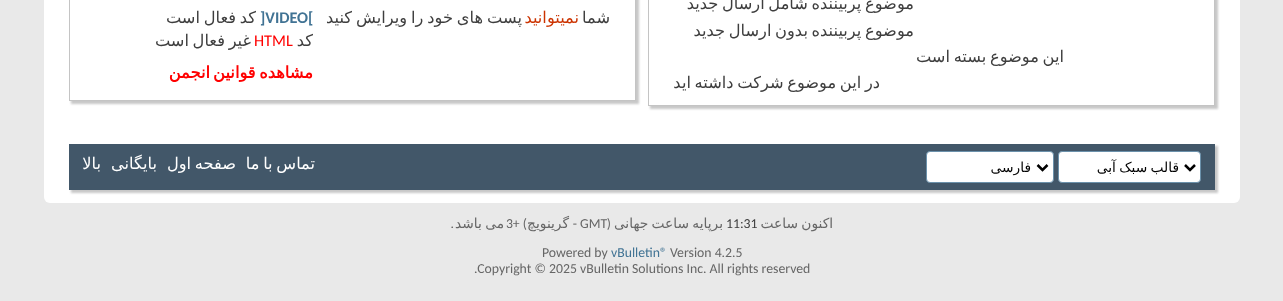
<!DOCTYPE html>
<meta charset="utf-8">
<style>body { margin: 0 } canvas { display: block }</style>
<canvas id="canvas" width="1283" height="301"></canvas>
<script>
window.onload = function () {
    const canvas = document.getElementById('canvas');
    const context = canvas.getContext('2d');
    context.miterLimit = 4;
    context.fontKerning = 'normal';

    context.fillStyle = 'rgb(233, 233, 233)';
    context.fillRect(0, 0, 1283, 301);
    context.fillStyle = 'rgb(255, 255, 255)';
    context.beginPath();
    context.roundRect(44, -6, 1196, 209, 6);
    context.fill();
    context.save();
    context.beginPath();
    context.moveTo(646, 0);
    context.lineTo(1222, 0);
    context.lineTo(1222, 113);
    context.lineTo(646, 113);
    context.closePath();
    context.moveTo(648, -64);
    context.lineTo(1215, -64);
    context.lineTo(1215, 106);
    context.lineTo(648, 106);
    context.closePath();
    context.clip('evenodd');
    context.fillStyle = 'rgb(200, 200, 200)';
    context.filter = 'blur(1px)';
    context.beginPath();
    context.rect(650, -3, 568, 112);
    context.fill();
    context.filter = 'none';
    context.restore();
    context.fillStyle = 'rgb(196, 196, 196)';
    context.fillRect(1214, 0, 1, 106);
    context.fillRect(648, 105, 567, 1);
    context.fillRect(648, 0, 1, 106);
    context.save();
    context.beginPath();
    context.moveTo(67, 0);
    context.lineTo(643, 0);
    context.lineTo(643, 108);
    context.lineTo(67, 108);
    context.closePath();
    context.moveTo(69, -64);
    context.lineTo(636, -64);
    context.lineTo(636, 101);
    context.lineTo(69, 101);
    context.closePath();
    context.clip('evenodd');
    context.fillStyle = 'rgb(200, 200, 200)';
    context.filter = 'blur(1px)';
    context.beginPath();
    context.rect(71, -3, 568, 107);
    context.fill();
    context.filter = 'none';
    context.restore();
    context.fillRect(635, 0, 1, 101);
    context.fillRect(69, 100, 567, 1);
    context.fillRect(69, 0, 1, 101);
    context.fillStyle = 'rgb(200, 200, 200)';
    context.filter = 'blur(1px)';
    context.beginPath();
    context.rect(71, 146, 1147, 47);
    context.fill();
    context.filter = 'none';
    context.fillStyle = 'rgb(66, 87, 105)';
    context.fillRect(69, 144, 1146, 46);
    context.fillStyle = 'rgb(255, 255, 255)';
    context.beginPath();
    context.roundRect(1058.5, 151.5, 142, 31, 3.5);
    context.fill();
    context.strokeStyle = 'rgb(107, 145, 171)';
    context.stroke();
    context.beginPath();
    context.moveTo(1185, 165);
    context.lineTo(1190, 170);
    context.lineTo(1195, 165);
    context.strokeStyle = 'rgb(0, 0, 0)';
    context.lineWidth = 2.5;
    context.stroke();
    context.beginPath();
    context.roundRect(926.5, 151.5, 127, 31, 3.5);
    context.fill();
    context.strokeStyle = 'rgb(107, 145, 171)';
    context.lineWidth = 1;
    context.stroke();
    context.beginPath();
    context.moveTo(1037.5, 165);
    context.lineTo(1042.5, 170);
    context.lineTo(1047.5, 165);
    context.strokeStyle = 'rgb(0, 0, 0)';
    context.lineWidth = 2.5;
    context.stroke();
    context.wordSpacing = '-1.5px';
    context.direction = 'rtl';
    context.font = '16.25px DejaVu Sans';
    context.fillStyle = 'rgb(62, 62, 62)';
    context.fillText('موضوع پربیننده شامل ارسال جدید', 914, 9);
    context.fillText('موضوع پربیننده بدون ارسال جدید', 914, 36);
    context.fillText('این موضوع بسته است', 1064, 62);
    context.fillText('در این موضوع شرکت داشته اید', 880, 88);
    context.wordSpacing = '0px';
    context.fillText('شما', 610, 23);
    context.fillStyle = 'rgb(204, 51, 0)';
    context.fillText('نمیتوانید', 579, 23);
    context.wordSpacing = '-1.25px';
    context.fillStyle = 'rgb(62, 62, 62)';
    context.fillText('پست های خود را ویرایش کنید', 522, 23);
    context.wordSpacing = '0px';
    context.direction = 'ltr';
    context.font = 'bold 16.25px Carlito';
    context.fillStyle = 'rgb(65, 115, 148)';
    context.fillText(']VIDEO[', 260, 23);
    context.direction = 'rtl';
    context.font = '16.25px DejaVu Sans';
    context.fillStyle = 'rgb(62, 62, 62)';
    context.fillText('کد', 256, 23);
    context.fillText('فعال', 236, 23);
    context.fillText('است', 200, 23);
    context.fillText('کد', 313, 46);
    context.direction = 'ltr';
    context.font = '16.25px Carlito';
    context.fillStyle = 'rgb(255, 0, 0)';
    context.fillText('HTML', 254, 46);
    context.wordSpacing = '-1.5px';
    context.direction = 'rtl';
    context.font = '16.25px DejaVu Sans';
    context.fillStyle = 'rgb(62, 62, 62)';
    context.fillText('غیر فعال', 251, 46);
    context.wordSpacing = '0px';
    context.fillText('است', 189, 46);
    context.wordSpacing = '-1.5px';
    context.font = 'bold 16.25px DejaVu Sans';
    context.fillStyle = 'rgb(255, 0, 0)';
    context.fillText('مشاهده قوانین', 313, 78);
    context.wordSpacing = '0px';
    context.fillText('انجمن', 210, 78);
    context.wordSpacing = '-1px';
    context.font = '13.75px DejaVu Sans';
    context.fillStyle = 'rgb(0, 0, 0)';
    context.fillText('قالب سبک آبی', 1179, 172);
    context.wordSpacing = '0px';
    context.fillText('فارسی', 1031, 172);
    context.wordSpacing = '-1.5px';
    context.font = '16.25px DejaVu Sans';
    context.fillStyle = 'rgb(255, 255, 255)';
    context.fillText('تماس با ما', 315, 169);
    context.fillText('صفحه اول', 236, 169);
    context.wordSpacing = '0px';
    context.fillText('بایگانی', 157, 169);
    context.fillText('بالا', 101, 169);
    context.wordSpacing = '-1px';
    context.font = '13.75px DejaVu Sans';
    context.fillStyle = 'rgb(102, 102, 102)';
    context.fillText('اکنون ساعت', 833, 228);
    context.wordSpacing = '0px';
    context.direction = 'ltr';
    context.font = '13.75px Carlito';
    context.fillStyle = 'rgb(62, 62, 62)';
    context.fillText('11:31', 726, 228);
    context.wordSpacing = '-1px';
    context.direction = 'rtl';
    context.font = '13.75px DejaVu Sans';
    context.fillStyle = 'rgb(102, 102, 102)';
    context.fillText('برپایه ساعت جهانی', 723, 228);
    context.wordSpacing = '0px';
    context.font = '13.75px Carlito';
    context.fillText('(', 611, 228);
    context.direction = 'ltr';
    context.fillText('GMT', 580, 228);
    context.direction = 'rtl';
    context.fillText('-', 577, 228);
    context.font = '13.75px DejaVu Sans';
    context.fillText('گرینویچ', 569, 228);
    context.font = '13.75px Carlito';
    context.fillText(') +', 527, 228);
    context.direction = 'ltr';
    context.fillText('3', 506, 228);
    context.wordSpacing = '-1px';
    context.direction = 'rtl';
    context.font = '13.75px DejaVu Sans';
    context.fillText('می باشد', 504, 228);
    context.wordSpacing = '0px';
    context.font = '13.75px Carlito';
    context.fillText('.', 454, 228);
    context.direction = 'ltr';
    context.fillText('Version 4.2.5', 670, 257);
    context.fillStyle = 'rgb(65, 115, 148)';
    context.fillText('vBulletin®', 611, 257);
    context.fillStyle = 'rgb(102, 102, 102)';
    context.fillText('Powered by', 542, 257);
    context.fillText('.Copyright © 2025 vBulletin Solutions Inc. All rights reserved', 474, 273);
};
</script>
